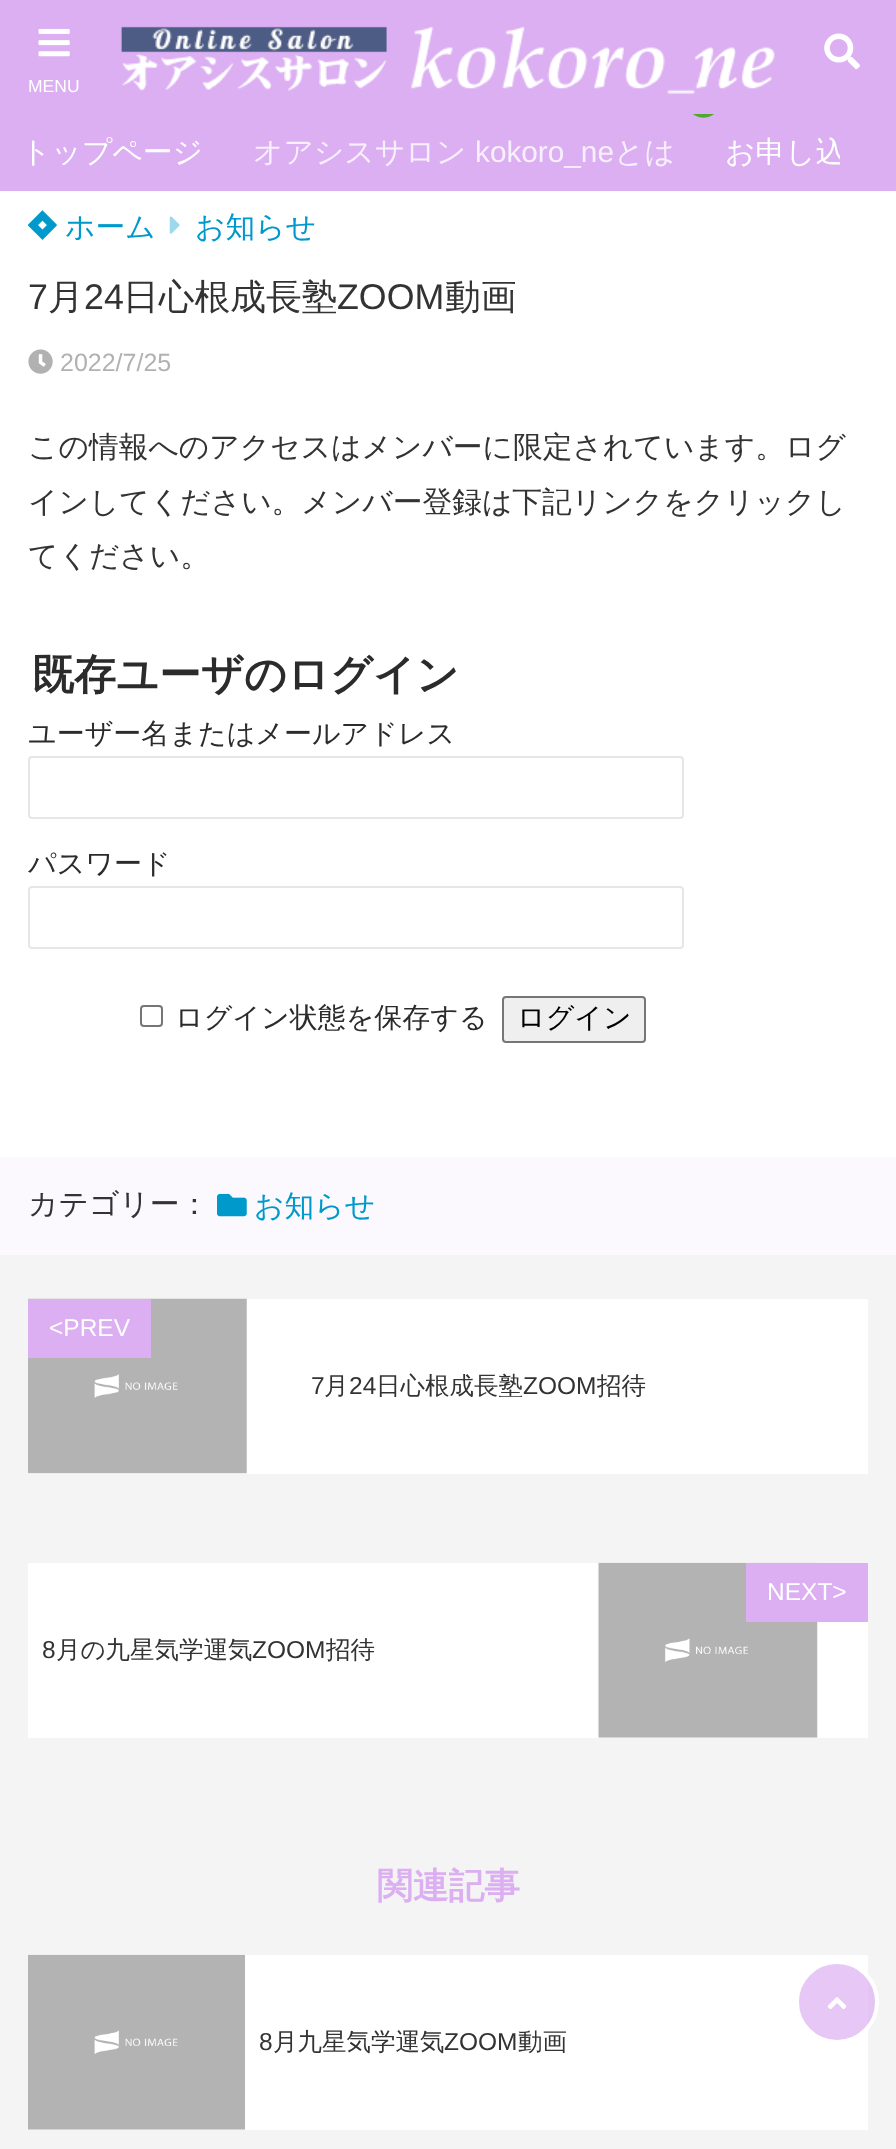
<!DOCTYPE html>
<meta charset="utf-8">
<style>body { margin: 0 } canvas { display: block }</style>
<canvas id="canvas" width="896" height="2149"></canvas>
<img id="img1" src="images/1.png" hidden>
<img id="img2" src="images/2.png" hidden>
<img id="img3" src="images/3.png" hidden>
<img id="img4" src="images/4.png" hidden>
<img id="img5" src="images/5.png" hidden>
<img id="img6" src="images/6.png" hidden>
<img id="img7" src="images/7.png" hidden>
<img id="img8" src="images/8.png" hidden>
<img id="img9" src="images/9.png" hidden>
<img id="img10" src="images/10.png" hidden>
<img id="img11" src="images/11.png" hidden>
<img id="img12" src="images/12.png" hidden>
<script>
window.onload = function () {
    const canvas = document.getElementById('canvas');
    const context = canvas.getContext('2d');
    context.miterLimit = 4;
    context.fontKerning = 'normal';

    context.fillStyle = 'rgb(244, 244, 244)';
    context.fillRect(0, 0, 896, 2149);
    context.fillStyle = 'rgb(219, 175, 241)';
    context.fillRect(0, 0, 896, 191);
    context.drawImage(document.getElementById('img1'), 824, 33, 36, 37);
    context.drawImage(document.getElementById('img2'), 38, 28, 32, 29);
    context.drawImage(document.getElementById('img3'), 121, 26, 654, 69);
    context.drawImage(document.getElementById('img4'), 693, 114, 21, 4);
    context.fillStyle = 'rgb(255, 255, 255)';
    context.fillRect(0, 191, 896, 966);
    context.drawImage(document.getElementById('img5'), 28, 210, 29, 30);
    context.drawImage(document.getElementById('img6'), 169, 216, 11, 18);
    context.drawImage(document.getElementById('img7'), 28, 349, 25, 25);
    context.beginPath();
    context.roundRect(29, 757, 654, 61, 3);
    context.strokeStyle = 'rgb(230, 230, 230)';
    context.lineWidth = 2;
    context.stroke();
    context.beginPath();
    context.roundRect(29, 887, 654, 61, 3);
    context.stroke();
    context.beginPath();
    context.roundRect(141, 1006, 21, 20, 3);
    context.strokeStyle = 'rgb(118, 118, 118)';
    context.stroke();
    context.fillStyle = 'rgb(239, 239, 239)';
    context.beginPath();
    context.roundRect(503, 997, 142, 45, 3);
    context.fill();
    context.stroke();
    context.fillStyle = 'rgb(252, 249, 254)';
    context.fillRect(0, 1157, 896, 98);
    context.drawImage(document.getElementById('img8'), 217, 1193, 30, 24);
    context.fillStyle = 'rgb(255, 255, 255)';
    context.fillRect(28, 1299, 840, 175);
    context.drawImage(document.getElementById('img9'), 28, 1298, 219, 176);
    context.fillStyle = 'rgb(219, 175, 241)';
    context.fillRect(28, 1299, 123, 59);
    context.fillStyle = 'rgb(255, 255, 255)';
    context.fillRect(28, 1563, 840, 175);
    context.drawImage(document.getElementById('img10'), 598, 1562, 220, 176);
    context.fillStyle = 'rgb(219, 175, 241)';
    context.fillRect(746, 1563, 122, 59);
    context.fillStyle = 'rgb(255, 255, 255)';
    context.fillRect(28, 1955, 840, 175);
    context.drawImage(document.getElementById('img11'), 28, 1954, 217, 176);
    context.fillStyle = 'rgba(219, 175, 241, 0.7)';
    context.beginPath();
    context.arc(837, 2002, 40, 0, 2 * Math.PI);
    context.fill();
    context.strokeStyle = 'rgb(255, 255, 255)';
    context.lineWidth = 4;
    context.stroke();
    context.drawImage(document.getElementById('img12'), 827, 1997, 20, 12);
    context.font = '17.5px Liberation Sans';
    context.fillStyle = 'rgb(255, 255, 255)';
    context.fillText('MENU', 28, 92);
    context.font = '500 29.75px WenQuanYi Zen Hei';
    context.fillText('トップページ', 21, 162);
    context.fillStyle = 'rgb(248, 239, 252)';
    context.fillText('オアシスサロン', 253, 162);
    context.font = '29.75px Liberation Sans';
    context.fillText('kokoro_ne', 475, 162);
    context.font = '500 29.75px WenQuanYi Zen Hei';
    context.fillText('とは', 614, 162);
    context.save();
    context.beginPath();
    context.rect(0, 114, 840, 77);
    context.clip();
    context.fillStyle = 'rgb(255, 255, 255)';
    context.fillText('お申し込', 725, 162);
    context.restore();
    context.fillStyle = 'rgb(0, 153, 204)';
    context.fillText('ホーム', 65, 237);
    context.fillText('お知らせ', 195, 237);
    context.font = '35.75px Liberation Sans';
    context.fillStyle = 'rgb(51, 51, 51)';
    context.fillText('7', 28, 309);
    context.font = '500 35.75px WenQuanYi Zen Hei';
    context.fillText('月', 48, 309);
    context.font = '35.75px Liberation Sans';
    context.fillText('24', 84, 309);
    context.font = '500 35.75px WenQuanYi Zen Hei';
    context.fillText('日心根成長塾', 123, 309);
    context.font = '35.75px Liberation Sans';
    context.fillText('ZOOM', 337, 309);
    context.font = '500 35.75px WenQuanYi Zen Hei';
    context.fillText('動画', 445, 309);
    context.font = '25px Liberation Sans';
    context.fillStyle = 'rgb(177, 177, 177)';
    context.fillText('2022/7/25', 60, 371);
    context.font = '500 29.75px WenQuanYi Zen Hei';
    context.fillStyle = 'rgb(51, 51, 51)';
    context.fillText('この情報へのアクセスはメンバーに限定されています。ログ', 28, 457);
    context.fillText('インしてください。メンバー登録は下記リンクをクリックし', 28, 512);
    context.fillText('てください。', 28, 566);
    context.font = 'bold 42px WenQuanYi Zen Hei';
    context.fillStyle = 'rgb(43, 43, 43)';
    context.fillText('既存ユーザのログイン', 32, 689);
    context.font = '500 28px WenQuanYi Zen Hei';
    context.fillText('ユーザー名またはメールアドレス', 28, 743);
    context.fillText('パスワード', 28, 873);
    context.fillText('ログイン状態を保存する', 175, 1027);
    context.fillStyle = 'rgb(0, 0, 0)';
    context.fillText('ログイン', 517, 1027);
    context.font = '500 29.75px WenQuanYi Zen Hei';
    context.fillStyle = 'rgb(51, 51, 51)';
    context.fillText('カテゴリー：', 28, 1214);
    context.fillStyle = 'rgb(0, 153, 204)';
    context.fillText('お知らせ', 254, 1216);
    context.font = '24.5px Liberation Sans';
    context.fillStyle = 'rgb(255, 255, 255)';
    context.fillText('<PREV', 49, 1336);
    context.fillStyle = 'rgb(51, 51, 51)';
    context.fillText('7', 311, 1394);
    context.font = '500 24.5px WenQuanYi Zen Hei';
    context.fillText('月', 324, 1394);
    context.font = '24.5px Liberation Sans';
    context.fillText('24', 349, 1394);
    context.font = '500 24.5px WenQuanYi Zen Hei';
    context.fillText('日心根成長塾', 376, 1394);
    context.font = '24.5px Liberation Sans';
    context.fillText('ZOOM', 523, 1394);
    context.font = '500 24.5px WenQuanYi Zen Hei';
    context.fillText('招待', 597, 1394);
    context.font = '24.5px Liberation Sans';
    context.fillStyle = 'rgb(255, 255, 255)';
    context.fillText('NEXT>', 767, 1600);
    context.fillStyle = 'rgb(51, 51, 51)';
    context.fillText('8', 42, 1658);
    context.font = '500 24.5px WenQuanYi Zen Hei';
    context.fillText('月の九星気学運気', 56, 1658);
    context.font = '24.5px Liberation Sans';
    context.fillText('ZOOM', 252, 1658);
    context.font = '500 24.5px WenQuanYi Zen Hei';
    context.fillText('招待', 326, 1658);
    context.font = 'bold 35.75px WenQuanYi Zen Hei';
    context.fillStyle = 'rgb(219, 175, 241)';
    context.fillText('関連記事', 377, 1898);
    context.font = '24.5px Liberation Sans';
    context.fillStyle = 'rgb(51, 51, 51)';
    context.fillText('8', 259, 2050);
    context.font = '500 24.5px WenQuanYi Zen Hei';
    context.fillText('月九星気学運気', 273, 2050);
    context.font = '24.5px Liberation Sans';
    context.fillText('ZOOM', 444, 2050);
    context.font = '500 24.5px WenQuanYi Zen Hei';
    context.fillText('動画', 518, 2050);
};
</script>
